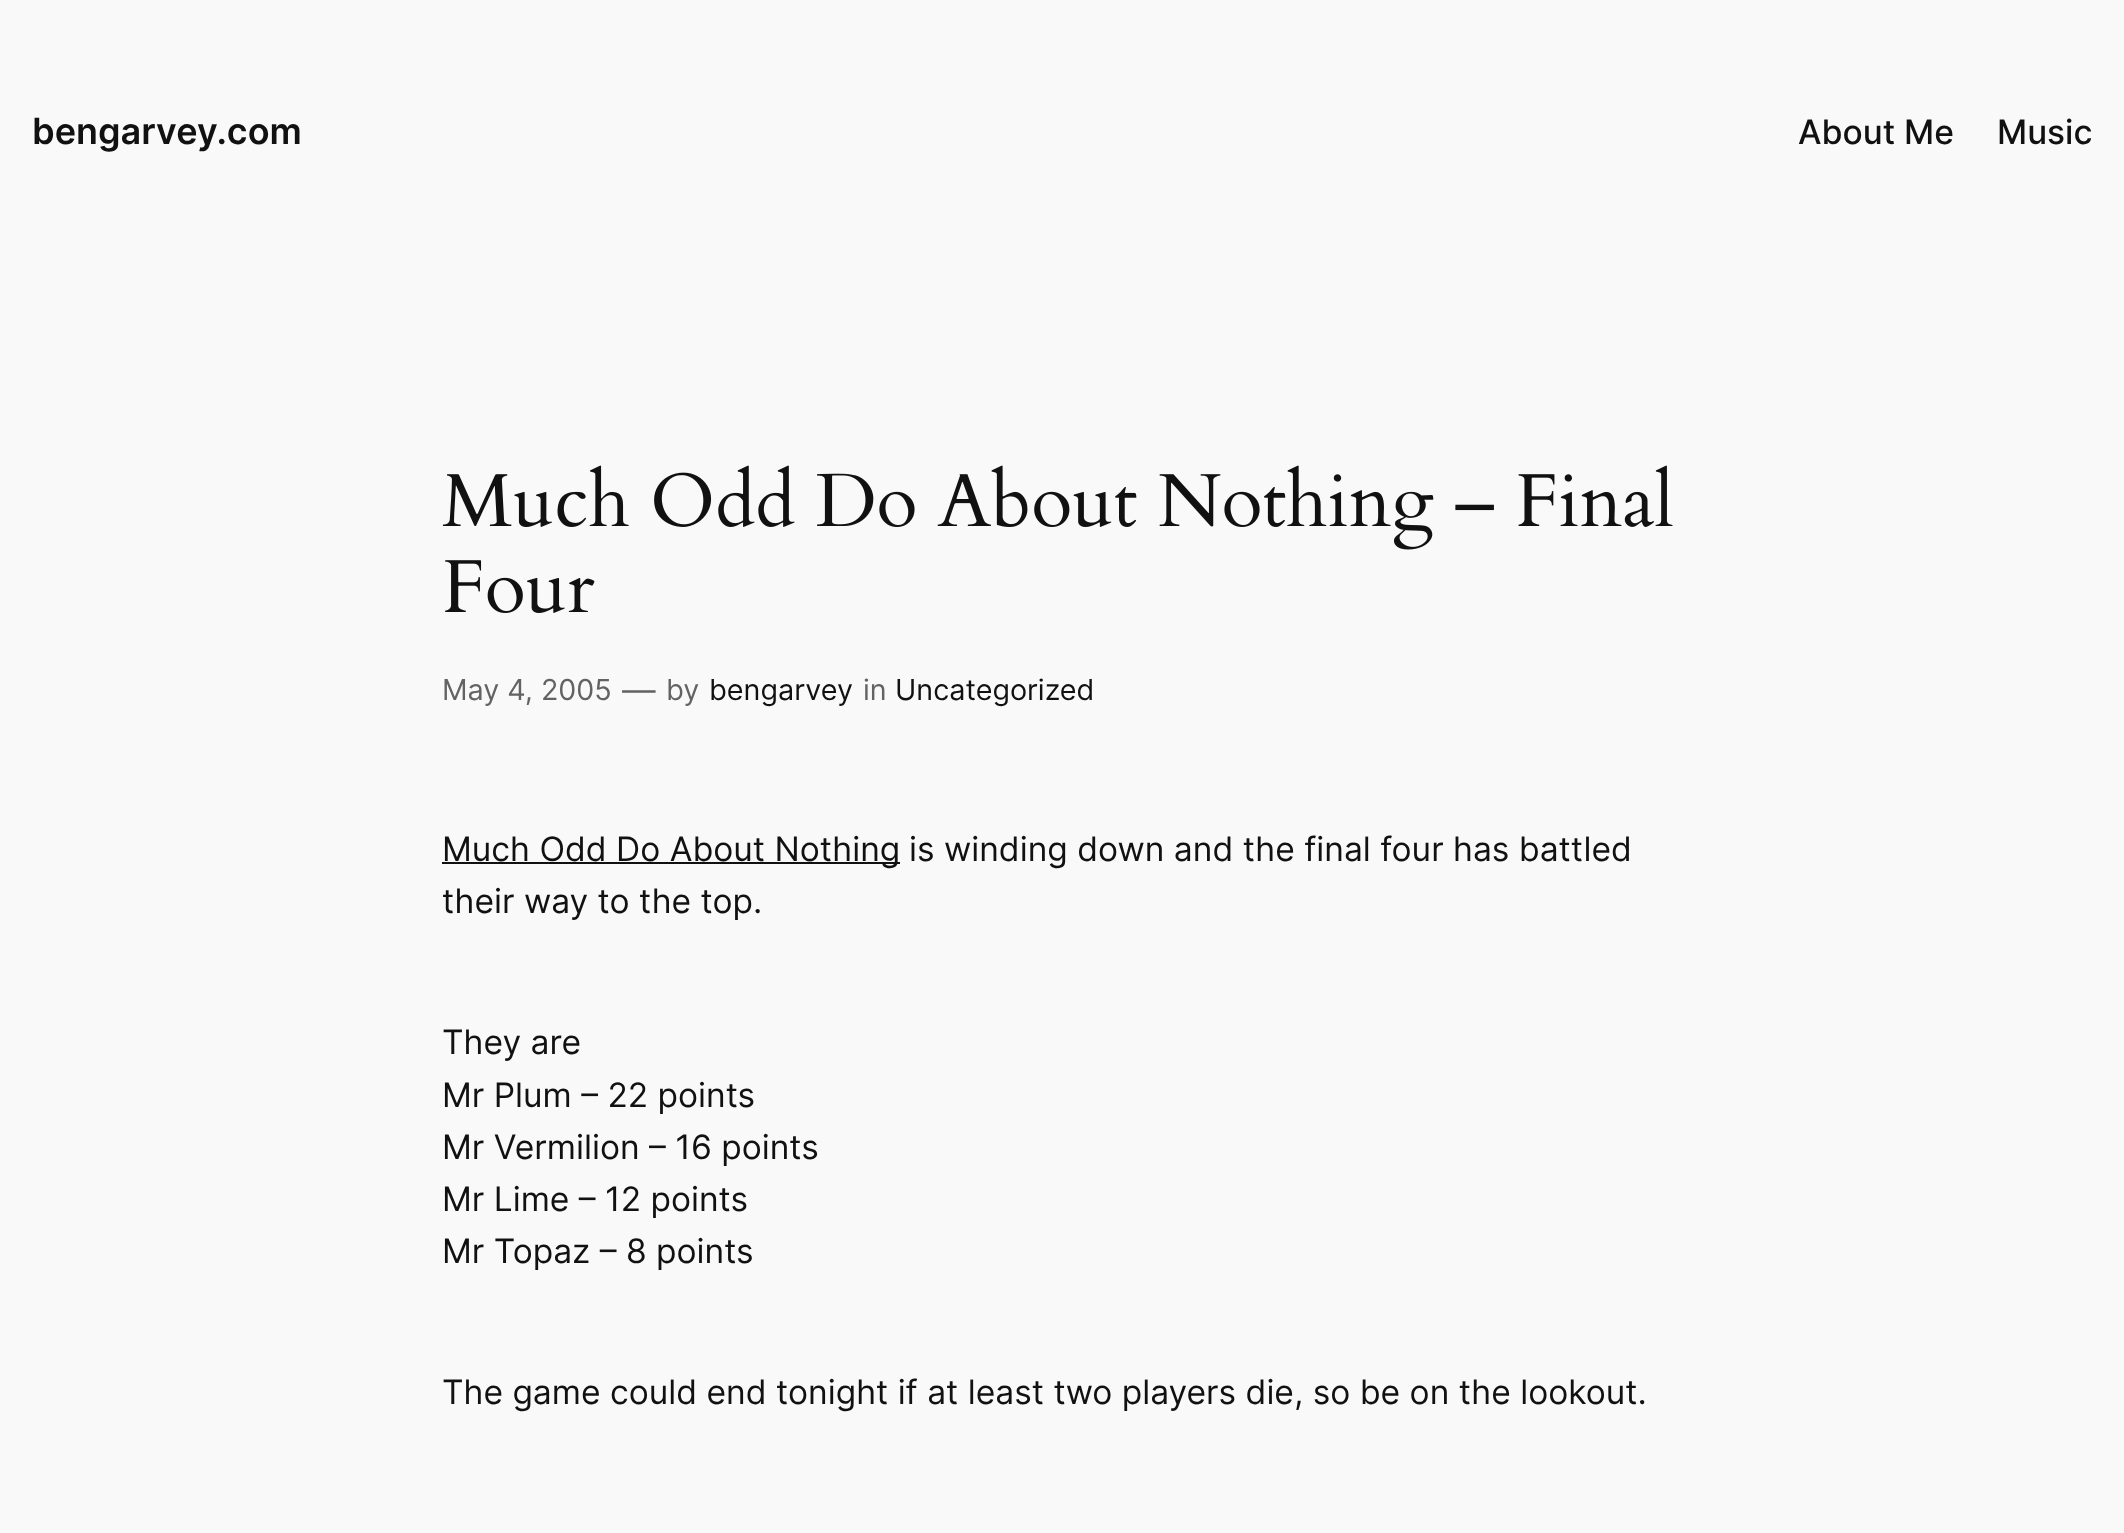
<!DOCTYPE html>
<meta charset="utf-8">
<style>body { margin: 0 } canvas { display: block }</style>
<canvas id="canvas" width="2124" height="1533"></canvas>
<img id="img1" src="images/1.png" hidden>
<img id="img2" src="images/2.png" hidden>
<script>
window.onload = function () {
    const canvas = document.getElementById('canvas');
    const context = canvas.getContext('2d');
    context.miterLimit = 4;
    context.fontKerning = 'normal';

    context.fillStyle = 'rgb(249, 249, 249)';
    context.fillRect(0, 0, 2124, 1533);
    context.drawImage(document.getElementById('img1'), 442, 465, 1231, 85);
    context.drawImage(document.getElementById('img2'), 445, 560, 150, 53);
    context.fillStyle = 'rgb(17, 17, 17)';
    context.fillRect(442, 862, 458, 2);
    context.font = '600 36px Inter';
    context.fillText('bengarvey.com', 32, 144);
    context.font = '500 33.6px Inter';
    context.fillText('About Me', 1798, 144);
    context.fillText('Music', 1997, 144);
    context.font = '28.75px Inter';
    context.fillStyle = 'rgb(99, 99, 99)';
    context.fillText('May 4, 2005', 442, 700);
    context.font = '33.6px Inter';
    context.fillText('—', 622, 702);
    context.font = '28.75px Inter';
    context.fillText('by', 666, 700);
    context.fillStyle = 'rgb(17, 17, 17)';
    context.fillText('bengarvey', 709, 700);
    context.fillStyle = 'rgb(99, 99, 99)';
    context.fillText('in', 863, 700);
    context.fillStyle = 'rgb(17, 17, 17)';
    context.fillText('Uncategorized', 895, 700);
    context.font = '33.6px Inter';
    context.fillText('Much Odd Do About Nothing', 442, 861);
    context.fillText('is winding down and the final four has battled', 909, 861);
    context.fillText('their way to the top.', 442, 913);
    context.fillText('They are', 442, 1054);
    context.fillText('Mr Plum – 22 points', 442, 1107);
    context.fillText('Mr Vermilion – 16 points', 442, 1159);
    context.fillText('Mr Lime – 12 points', 442, 1211);
    context.fillText('Mr Topaz – 8 points', 442, 1263);
    context.fillText('The game could end tonight if at least two players die, so be on the lookout.', 442, 1404);
};
</script>
